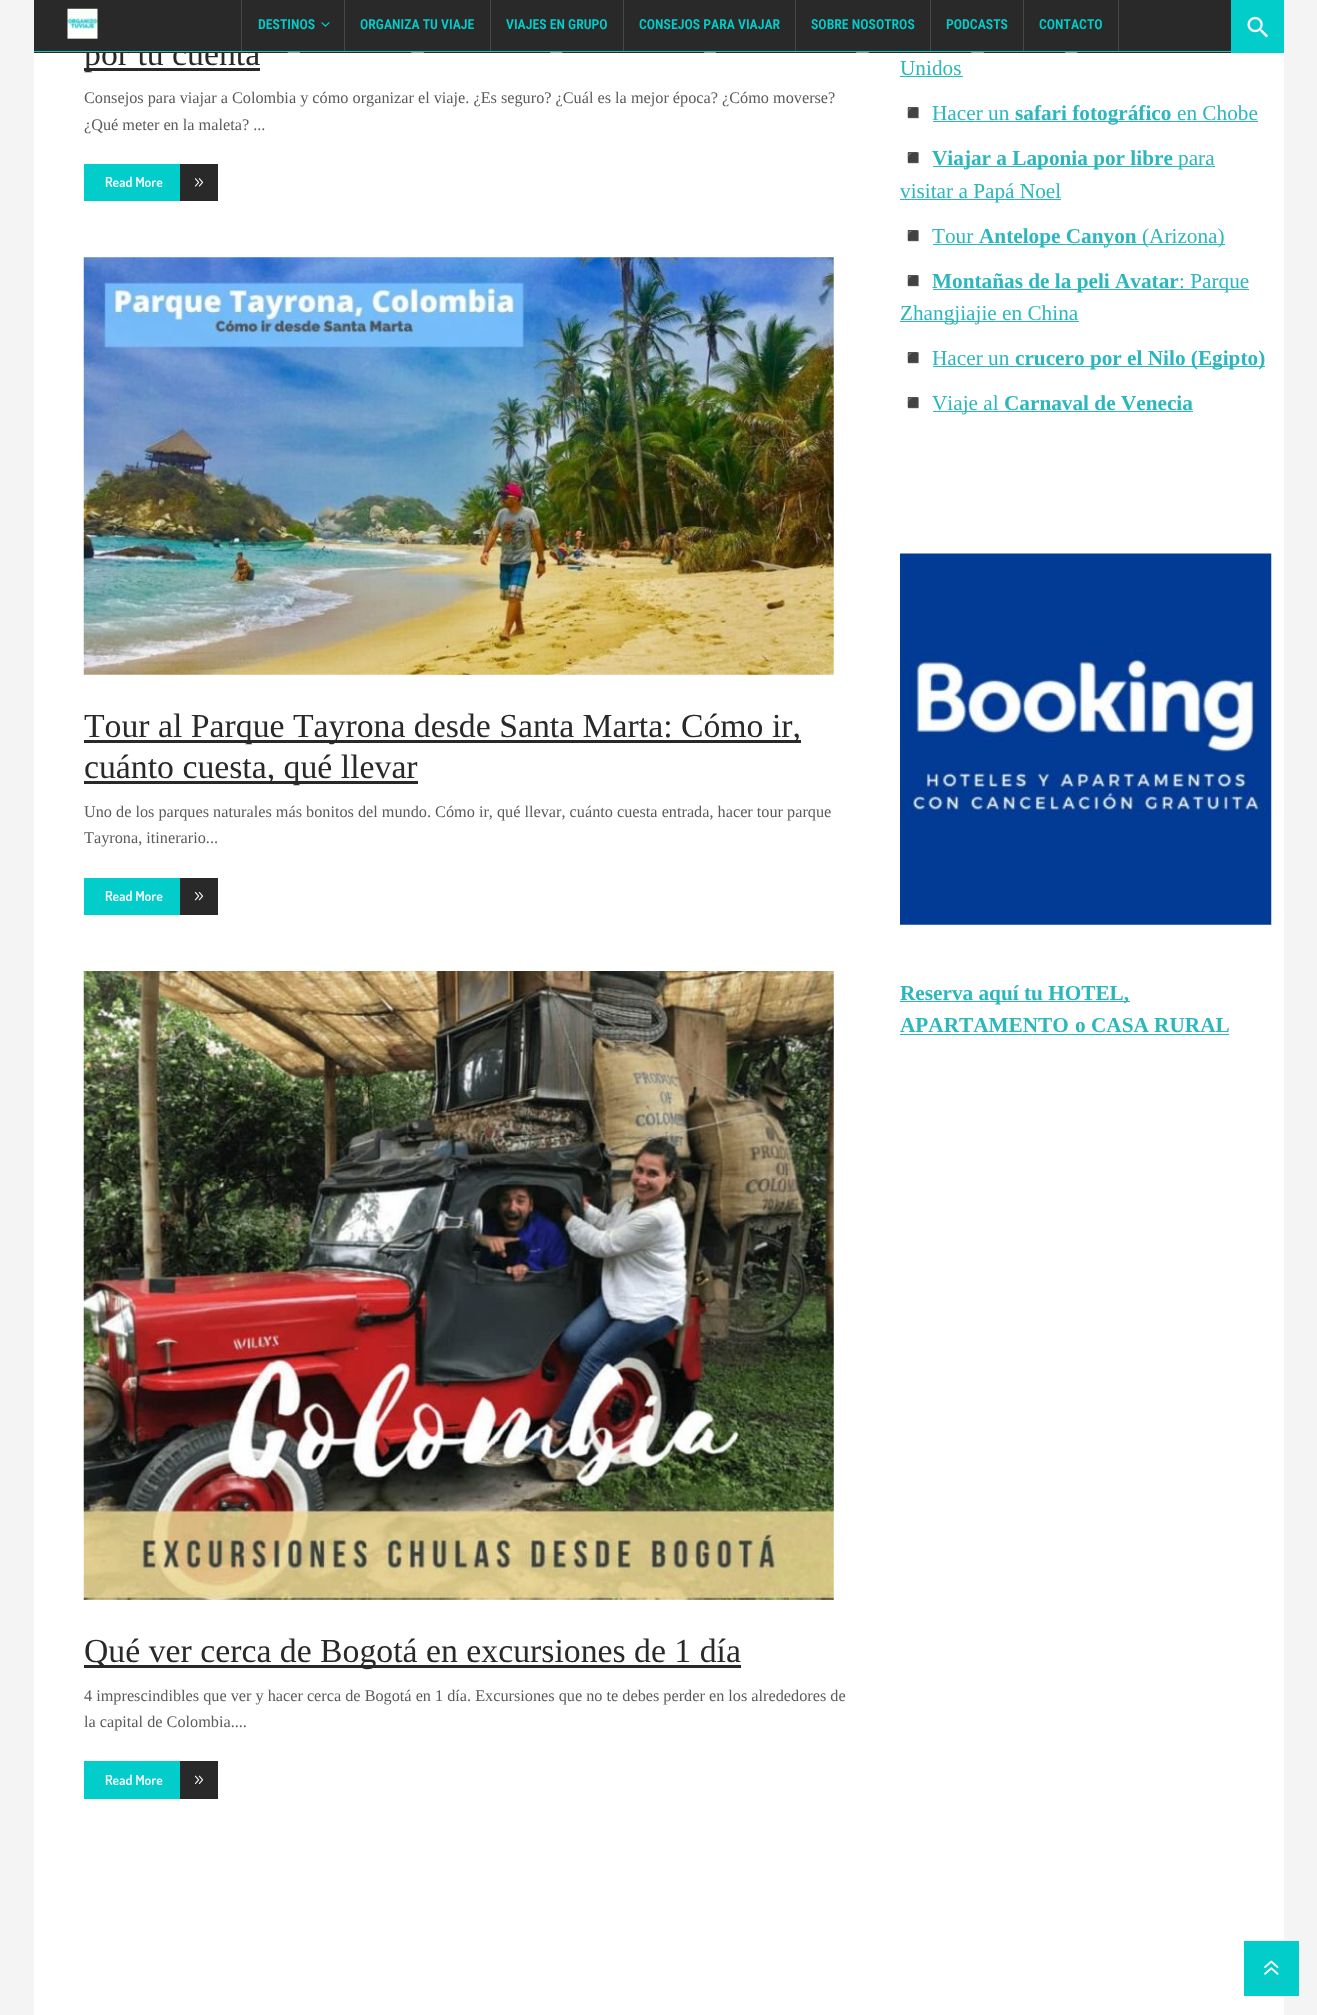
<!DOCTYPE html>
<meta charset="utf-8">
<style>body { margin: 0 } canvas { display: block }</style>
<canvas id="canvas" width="1317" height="2015"></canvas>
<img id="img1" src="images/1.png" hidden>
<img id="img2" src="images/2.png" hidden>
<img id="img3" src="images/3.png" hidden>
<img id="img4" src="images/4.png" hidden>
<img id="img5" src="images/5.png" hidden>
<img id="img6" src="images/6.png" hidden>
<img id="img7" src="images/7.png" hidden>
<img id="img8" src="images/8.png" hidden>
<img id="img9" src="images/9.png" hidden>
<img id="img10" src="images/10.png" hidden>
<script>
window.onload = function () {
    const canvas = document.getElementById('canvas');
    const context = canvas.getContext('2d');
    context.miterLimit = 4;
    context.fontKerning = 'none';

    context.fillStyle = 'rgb(244, 244, 244)';
    context.fillRect(0, 0, 1317, 2015);
    context.fillStyle = 'rgb(41, 41, 41)';
    context.fillRect(34, 0, 1197, 53);
    context.drawImage(document.getElementById('img1'), 67, 8, 31, 31);
    context.fillStyle = 'rgb(73, 72, 72)';
    context.fillRect(344, 0, 1, 51);
    context.drawImage(document.getElementById('img2'), 321, 22, 9, 5);
    context.fillStyle = 'rgb(255, 255, 255)';
    context.fillRect(34, 53, 1250, 1962);
    context.beginPath();
    context.moveTo(287.5, 52.5);
    context.lineTo(300, 52.5);
    context.lineTo(294, 60);
    context.closePath();
    context.fill();
    context.fillStyle = 'rgb(73, 72, 72)';
    context.fillRect(490, 0, 1, 51);
    context.fillStyle = 'rgb(255, 255, 255)';
    context.beginPath();
    context.moveTo(411, 52.5);
    context.lineTo(424, 52.5);
    context.lineTo(417.5, 60);
    context.closePath();
    context.fill();
    context.fillStyle = 'rgb(73, 72, 72)';
    context.fillRect(623, 0, 1, 51);
    context.fillStyle = 'rgb(255, 255, 255)';
    context.beginPath();
    context.moveTo(550, 52.5);
    context.lineTo(562.5, 52.5);
    context.lineTo(556, 60);
    context.closePath();
    context.fill();
    context.fillStyle = 'rgb(73, 72, 72)';
    context.fillRect(795, 0, 1, 51);
    context.fillStyle = 'rgb(255, 255, 255)';
    context.beginPath();
    context.moveTo(704, 52.5);
    context.lineTo(716, 52.5);
    context.lineTo(710, 60);
    context.closePath();
    context.fill();
    context.fillStyle = 'rgb(73, 72, 72)';
    context.fillRect(930, 0, 1, 51);
    context.fillStyle = 'rgb(255, 255, 255)';
    context.beginPath();
    context.moveTo(856, 52.5);
    context.lineTo(869, 52.5);
    context.lineTo(862.5, 60);
    context.closePath();
    context.fill();
    context.fillStyle = 'rgb(73, 72, 72)';
    context.fillRect(1023, 0, 1, 51);
    context.fillStyle = 'rgb(255, 255, 255)';
    context.beginPath();
    context.moveTo(971, 52.5);
    context.lineTo(984, 52.5);
    context.lineTo(977.5, 60);
    context.closePath();
    context.fill();
    context.fillStyle = 'rgb(73, 72, 72)';
    context.fillRect(1118, 0, 1, 51);
    context.fillStyle = 'rgb(255, 255, 255)';
    context.beginPath();
    context.moveTo(1065, 52.5);
    context.lineTo(1077.5, 52.5);
    context.lineTo(1071, 60);
    context.closePath();
    context.fill();
    context.fillStyle = 'rgb(3, 205, 203)';
    context.fillRect(1231, 0, 53, 53);
    context.drawImage(document.getElementById('img3'), 1247, 16, 21, 22);
    context.fillStyle = 'rgb(41, 41, 41)';
    context.fillRect(84, 68, 176, 3);
    context.fillStyle = 'rgb(3, 205, 203)';
    context.fillRect(84, 164, 96, 37);
    context.fillStyle = 'rgb(41, 41, 41)';
    context.fillRect(180, 164, 38, 37);
    context.drawImage(document.getElementById('img4'), 194, 178, 10, 9);
    context.drawImage(document.getElementById('img5'), 83, 257, 751, 418);
    context.fillRect(84, 740, 717, 3);
    context.fillRect(84, 781, 334, 3);
    context.fillStyle = 'rgb(3, 205, 203)';
    context.fillRect(84, 878, 96, 37);
    context.fillStyle = 'rgb(41, 41, 41)';
    context.fillRect(180, 878, 38, 37);
    context.drawImage(document.getElementById('img6'), 194, 891, 10, 10);
    context.drawImage(document.getElementById('img7'), 83, 971, 751, 629);
    context.fillRect(84, 1665, 657, 3);
    context.fillStyle = 'rgb(3, 205, 203)';
    context.fillRect(84, 1761, 96, 38);
    context.fillStyle = 'rgb(41, 41, 41)';
    context.fillRect(180, 1761, 38, 38);
    context.drawImage(document.getElementById('img8'), 194, 1775, 10, 9);
    context.fillStyle = 'rgb(43, 183, 188)';
    context.fillRect(900, 76, 63, 1);
    context.fillRect(933, 121, 325, 1);
    context.fillRect(933, 166, 282, 1);
    context.fillRect(900, 199, 161, 1);
    context.fillRect(933, 244, 203, 1);
    context.fillRect(1136, 244, 89, 1);
    context.fillRect(933, 289, 316, 1);
    context.fillRect(900, 321, 179, 1);
    context.fillRect(933, 366, 332, 1);
    context.fillRect(933, 411, 260, 1);
    context.drawImage(document.getElementById('img9'), 900, 553, 372, 372);
    context.fillRect(900, 1001, 230, 1);
    context.fillRect(900, 1034, 329, 1);
    context.fillStyle = 'rgb(3, 205, 203)';
    context.fillRect(1244, 1941, 55, 55);
    context.drawImage(document.getElementById('img10'), 1264, 1960, 15, 15);
    context.fillStyle = 'rgb(43, 183, 188)';
    context.fillRect(1256, 1983, 30, 1);
    context.font = '600 13.75px Roboto Condensed';
    context.fillStyle = 'rgb(3, 205, 203)';
    context.fillText('DESTINOS', 258, 29);
    context.fillText('ORGANIZA TU VIAJE', 360, 29);
    context.fillText('VIAJES EN GRUPO', 506, 29);
    context.fillText('CONSEJOS PARA VIAJAR', 639, 29);
    context.fillText('SOBRE NOSOTROS', 811, 29);
    context.fillText('PODCASTS', 946, 29);
    context.fillText('CONTACTO', 1039, 29);
    context.font = '33.75px Liberation Serif';
    context.fillStyle = 'rgb(41, 41, 41)';
    context.fillText('por tu cuenta', 84, 65);
    context.fillStyle = 'rgb(73, 72, 72)';
    context.fillRect(241, 0, 1, 51);
    context.fillStyle = 'rgb(3, 205, 203)';
    context.fillRect(34, 51, 1197, 1);
    context.font = '16.25px Liberation Serif';
    context.fillStyle = 'rgb(91, 91, 91)';
    context.fillText('Consejos para viajar a Colombia y cómo organizar el viaje. ¿Es seguro? ¿Cuál es la mejor época? ¿Cómo moverse?', 84, 103);
    context.fillText('¿Qué meter en la maleta? ...', 84, 130);
    context.font = '600 13.75px Dosis';
    context.fillStyle = 'rgb(255, 255, 255)';
    context.fillText('Read More', 105, 187);
    context.font = '33.75px Liberation Serif';
    context.fillStyle = 'rgb(41, 41, 41)';
    context.fillText('Tour al Parque Tayrona desde Santa Marta: Cómo ir,', 84, 737);
    context.fillText('cuánto cuesta, qué llevar', 84, 778);
    context.font = '16.25px Liberation Serif';
    context.fillStyle = 'rgb(91, 91, 91)';
    context.fillText('Uno de los parques naturales más bonitos del mundo. Cómo ir, qué llevar, cuánto cuesta entrada, hacer tour parque', 84, 817);
    context.fillText('Tayrona, itinerario...', 84, 843);
    context.font = '600 13.75px Dosis';
    context.fillStyle = 'rgb(255, 255, 255)';
    context.fillText('Read More', 105, 901);
    context.font = '33.75px Liberation Serif';
    context.fillStyle = 'rgb(41, 41, 41)';
    context.fillText('Qué ver cerca de Bogotá en excursiones de 1 día', 84, 1662);
    context.font = '16.25px Liberation Serif';
    context.fillStyle = 'rgb(91, 91, 91)';
    context.fillText('4 imprescindibles que ver y hacer cerca de Bogotá en 1 día. Excursiones que no te debes perder en los alrededores de', 84, 1701);
    context.fillText('la capital de Colombia....', 84, 1727);
    context.font = '600 13.75px Dosis';
    context.fillStyle = 'rgb(255, 255, 255)';
    context.fillText('Read More', 105, 1785);
    context.font = '21.25px Liberation Serif';
    context.fillStyle = 'rgb(43, 183, 188)';
    context.fillText('Unidos', 900, 75);
    context.font = '21.25px Noto Color Emoji';
    context.fillStyle = 'rgb(91, 91, 91)';
    context.fillText('◾', 900, 120);
    context.font = '21.25px Liberation Serif';
    context.fillStyle = 'rgb(43, 183, 188)';
    context.fillText('Hacer un', 932, 120);
    context.font = 'bold 21.25px Liberation Serif';
    context.fillText('safari fotográfico', 1015, 120);
    context.font = '21.25px Liberation Serif';
    context.fillText('en Chobe', 1177, 120);
    context.font = '21.25px Noto Color Emoji';
    context.fillStyle = 'rgb(91, 91, 91)';
    context.fillText('◾', 900, 165);
    context.font = 'bold 21.25px Liberation Serif';
    context.fillStyle = 'rgb(43, 183, 188)';
    context.fillText('Viajar a Laponia por libre', 932, 165);
    context.font = '21.25px Liberation Serif';
    context.fillText('para', 1178, 165);
    context.fillText('visitar a Papá Noel', 900, 198);
    context.font = '21.25px Noto Color Emoji';
    context.fillStyle = 'rgb(91, 91, 91)';
    context.fillText('◾', 900, 243);
    context.font = '21.25px Liberation Serif';
    context.fillStyle = 'rgb(43, 183, 188)';
    context.fillText('Tour', 932, 243);
    context.font = 'bold 21.25px Liberation Serif';
    context.fillText('Antelope Canyon', 979, 243);
    context.font = '21.25px Liberation Serif';
    context.fillText('(Arizona)', 1142, 243);
    context.font = 'bold 21.25px Noto Color Emoji';
    context.fillStyle = 'rgb(91, 91, 91)';
    context.fillText('◾', 900, 288);
    context.font = 'bold 21.25px Liberation Serif';
    context.fillStyle = 'rgb(43, 183, 188)';
    context.fillText('Montañas de la peli Avatar', 932, 288);
    context.font = '21.25px Liberation Serif';
    context.fillText(': Parque', 1179, 288);
    context.fillText('Zhangjiajie en China', 900, 320);
    context.font = '21.25px Noto Color Emoji';
    context.fillStyle = 'rgb(91, 91, 91)';
    context.fillText('◾', 900, 365);
    context.font = '21.25px Liberation Serif';
    context.fillStyle = 'rgb(43, 183, 188)';
    context.fillText('Hacer un', 932, 365);
    context.font = 'bold 21.25px Liberation Serif';
    context.fillText('crucero por el Nilo (Egipto)', 1015, 365);
    context.font = '21.25px Noto Color Emoji';
    context.fillStyle = 'rgb(91, 91, 91)';
    context.fillText('◾', 900, 410);
    context.font = '21.25px Liberation Serif';
    context.fillStyle = 'rgb(43, 183, 188)';
    context.fillText('Viaje al', 932, 410);
    context.font = 'bold 21.25px Liberation Serif';
    context.fillText('Carnaval de Venecia', 1004, 410);
    context.fillText('Reserva aquí tu HOTEL,', 900, 1000);
    context.fillText('APARTAMENTO', 900, 1032);
    context.fillText('o CASA RURAL', 1075, 1032);
};
</script>
